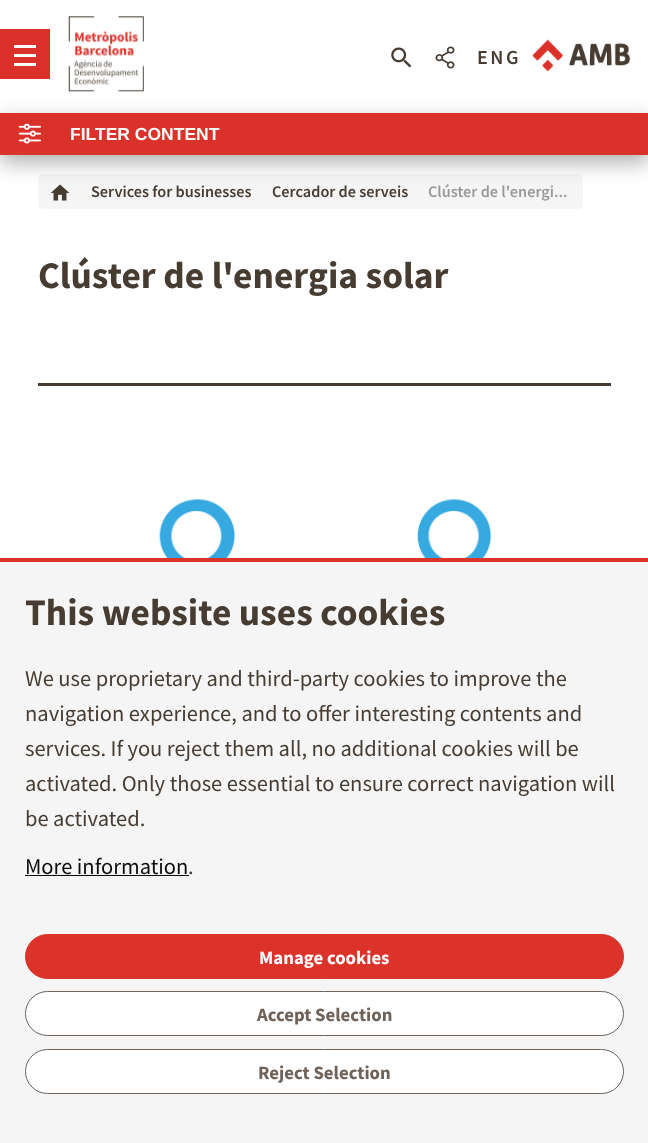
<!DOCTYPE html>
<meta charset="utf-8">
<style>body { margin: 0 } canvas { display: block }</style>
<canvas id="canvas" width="648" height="1143"></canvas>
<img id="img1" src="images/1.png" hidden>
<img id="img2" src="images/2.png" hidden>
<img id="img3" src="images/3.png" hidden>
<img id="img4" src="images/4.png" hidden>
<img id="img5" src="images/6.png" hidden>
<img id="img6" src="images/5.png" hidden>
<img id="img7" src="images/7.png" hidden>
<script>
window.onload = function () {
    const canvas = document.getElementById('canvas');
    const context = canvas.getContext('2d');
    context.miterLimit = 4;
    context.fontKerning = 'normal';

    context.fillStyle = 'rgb(255, 255, 255)';
    context.fillRect(0, 0, 648, 1143);
    context.fillStyle = 'rgb(218, 50, 42)';
    context.fillRect(0, 29, 50, 50);
    context.fillStyle = 'rgb(255, 255, 255)';
    context.fillRect(14, 54, 22, 3);
    context.fillRect(14, 45, 22, 3);
    context.fillRect(14, 63, 22, 3);
    context.drawImage(document.getElementById('img1'), 391, 47, 21, 21);
    context.drawImage(document.getElementById('img2'), 435, 46, 20, 23);
    context.drawImage(document.getElementById('img3'), 532, 39, 98, 33);
    context.drawImage(document.getElementById('img4'), 68, 16, 76, 76);
    context.fillStyle = 'rgb(245, 245, 245)';
    context.beginPath();
    context.roundRect(38, 174, 48, 35, 5);
    context.fill();
    context.drawImage(document.getElementById('img5'), 50, 184, 20, 17);
    context.beginPath();
    context.roundRect(80, 174, 186, 35, 5);
    context.fill();
    context.beginPath();
    context.roundRect(260, 174, 164, 35, 5);
    context.fill();
    context.beginPath();
    context.roundRect(418, 174, 165, 35, 5);
    context.fill();
    context.fillStyle = 'rgba(0, 0, 0, 0.3)';
    context.filter = 'blur(10px)';
    context.beginPath();
    context.rect(0, 120, 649, 43);
    context.fill();
    context.filter = 'none';
    context.fillStyle = 'rgb(218, 50, 42)';
    context.fillRect(0, 113, 648, 42);
    context.drawImage(document.getElementById('img6'), 18, 123, 24, 21);
    context.fillStyle = 'rgb(70, 60, 50)';
    context.fillRect(38, 383, 573, 3);
    context.drawImage(document.getElementById('img7'), 159, 499, 333, 59);
    context.fillStyle = 'rgb(245, 245, 245)';
    context.fillRect(0, 562, 648, 581);
    context.fillStyle = 'rgb(219, 50, 42)';
    context.fillRect(0, 558, 648, 4);
    context.fillStyle = 'rgb(14, 14, 14)';
    context.fillRect(25, 875, 164, 1);
    context.fillStyle = 'rgb(219, 50, 42)';
    context.beginPath();
    context.roundRect(25.5, 934.5, 598, 44, 22);
    context.fill();
    context.strokeStyle = 'rgb(219, 50, 42)';
    context.stroke();
    context.fillStyle = 'rgb(255, 255, 255)';
    context.beginPath();
    context.roundRect(25.5, 991.5, 598, 44, 22);
    context.fill();
    context.strokeStyle = 'rgb(110, 98, 89)';
    context.stroke();
    context.beginPath();
    context.roundRect(25.5, 1049.5, 598, 44, 22);
    context.fill();
    context.stroke();
    context.letterSpacing = '2.5px';
    context.font = '600 20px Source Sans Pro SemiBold';
    context.fillStyle = 'rgb(70, 60, 50)';
    context.fillText('ENG', 477, 64);
    context.letterSpacing = '0px';
    context.font = 'bold 17.5px Liberation Sans';
    context.fillStyle = 'rgb(255, 255, 255)';
    context.fillText('FILTER CONTENT', 70, 140);
    context.font = '600 16.25px Source Sans Pro SemiBold';
    context.fillStyle = 'rgb(70, 60, 50)';
    context.fillText('Services for businesses', 91, 197);
    context.fillText('Cercador de serveis', 272, 197);
    context.fillStyle = 'rgb(153, 153, 153)';
    context.fillText('Clúster de l\'energi...', 428, 197);
    context.font = 'bold 37.5px Source Sans Pro';
    context.fillStyle = 'rgb(70, 60, 50)';
    context.fillText('Clúster de l\'energia solar', 38, 288);
    context.fillText('This website uses cookies', 25, 625);
    context.font = '22.5px Source Sans Pro';
    context.fillText('We use proprietary and third-party cookies to improve the', 25, 686);
    context.fillText('navigation experience, and to offer interesting contents and', 25, 721);
    context.fillText('services. If you reject them all, no additional cookies will be', 25, 756);
    context.fillText('activated. Only those essential to ensure correct navigation will', 25, 791);
    context.fillText('be activated.', 25, 826);
    context.fillStyle = 'rgb(14, 14, 14)';
    context.fillText('More information', 25, 874);
    context.fillStyle = 'rgb(70, 60, 50)';
    context.fillText('.', 188, 874);
    context.font = 'bold 18.75px Source Sans Pro';
    context.fillStyle = 'rgb(255, 255, 255)';
    context.fillText('Manage cookies', 259, 964);
    context.fillStyle = 'rgb(110, 98, 89)';
    context.fillText('Accept Selection', 257, 1021);
    context.fillText('Reject Selection', 258, 1079);
};
</script>
